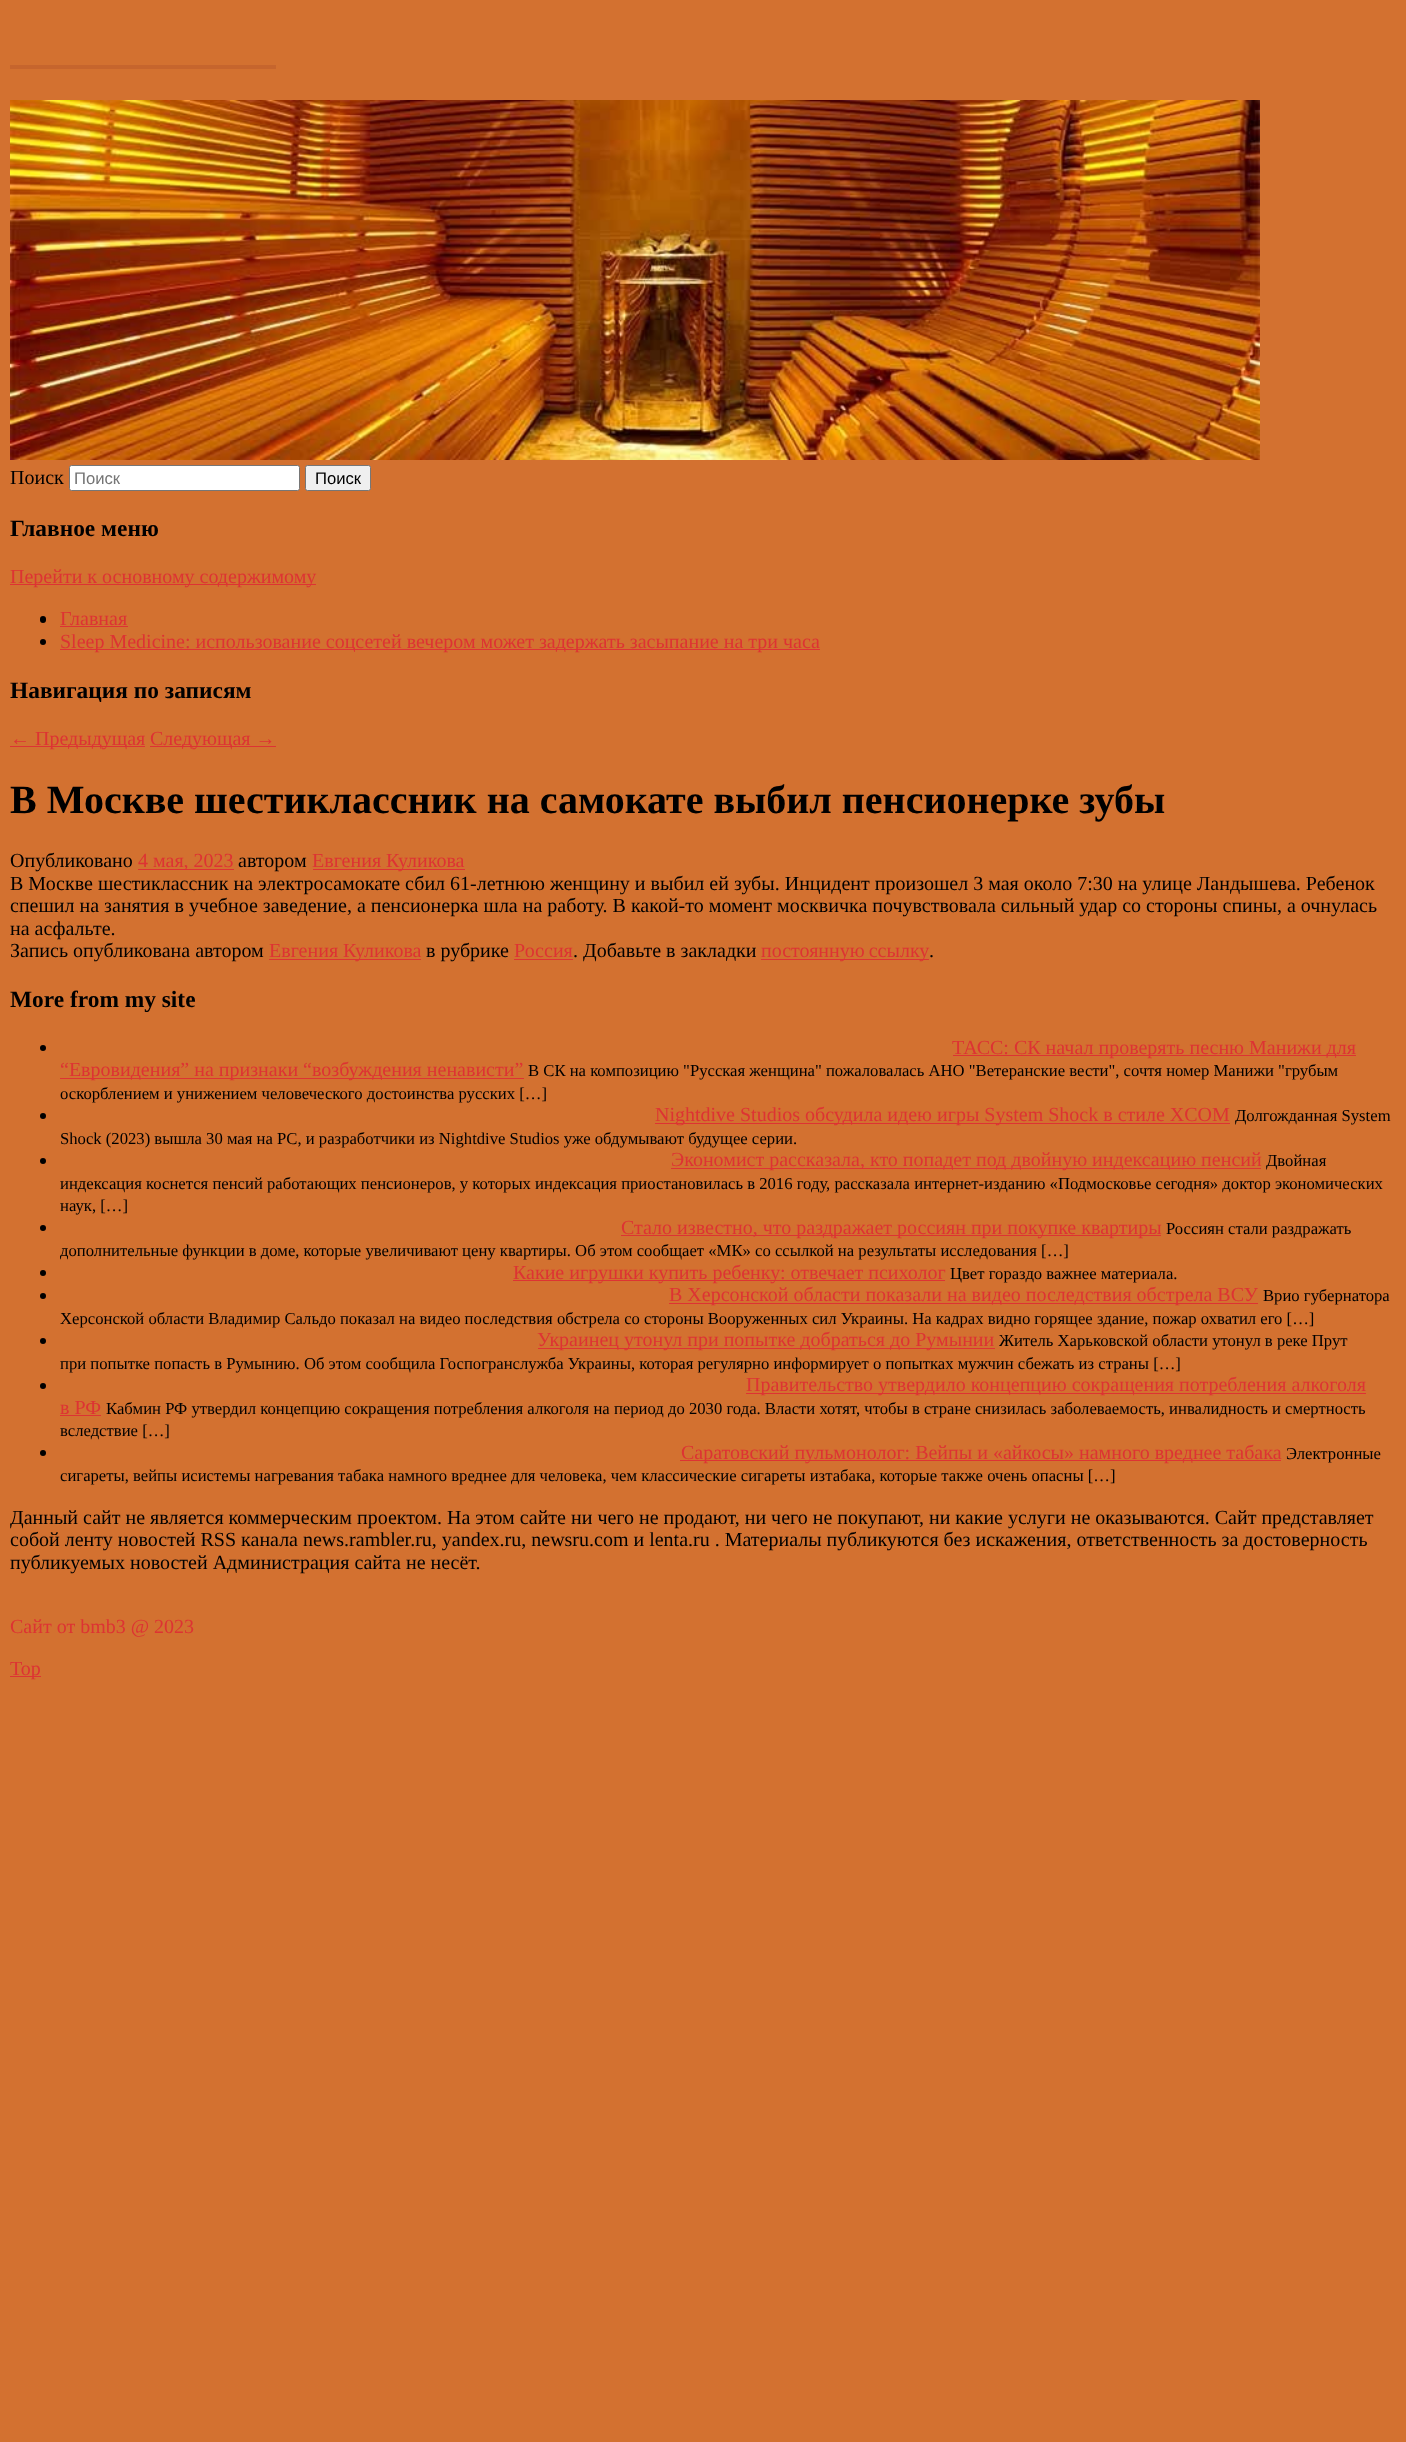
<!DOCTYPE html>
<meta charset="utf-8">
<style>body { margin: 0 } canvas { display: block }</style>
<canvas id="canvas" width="1406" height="2442"></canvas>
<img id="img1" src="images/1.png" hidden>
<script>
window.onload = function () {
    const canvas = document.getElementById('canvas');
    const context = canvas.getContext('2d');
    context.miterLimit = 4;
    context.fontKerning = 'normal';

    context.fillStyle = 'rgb(211, 113, 48)';
    context.fillRect(0, 0, 1406, 2442);
    context.fillStyle = 'rgb(198, 101, 45)';
    context.fillRect(10, 65, 266, 4);
    context.drawImage(document.getElementById('img1'), 10, 100, 1250, 360);
    context.fillStyle = 'rgb(255, 255, 255)';
    context.beginPath();
    context.roundRect(69.5, 465.5, 230, 25, 2);
    context.fill();
    context.strokeStyle = 'rgb(118, 118, 118)';
    context.stroke();
    context.fillStyle = 'rgb(239, 239, 239)';
    context.beginPath();
    context.roundRect(305.5, 465.5, 65, 25, 2);
    context.fill();
    context.stroke();
    context.fillStyle = 'rgb(221, 51, 51)';
    context.fillRect(10, 584, 306, 1);
    context.fillStyle = 'rgb(0, 0, 0)';
    context.beginPath();
    context.roundRect(40, 616, 6, 7, 3);
    context.fill();
    context.fillStyle = 'rgb(221, 51, 51)';
    context.fillRect(60, 626, 68, 1);
    context.fillStyle = 'rgb(0, 0, 0)';
    context.beginPath();
    context.arc(43, 642, 3, 0, 2 * Math.PI);
    context.fill();
    context.fillStyle = 'rgb(221, 51, 51)';
    context.fillRect(60, 649, 760, 1);
    context.fillRect(10, 746, 135, 1);
    context.fillRect(150, 746, 126, 1);
    context.fillRect(138, 869, 96, 1);
    context.fillRect(313, 869, 152, 1);
    context.fillRect(269, 959, 152, 1);
    context.fillRect(514, 959, 59, 1);
    context.fillRect(761, 959, 168, 1);
    context.fillStyle = 'rgb(0, 0, 0)';
    context.beginPath();
    context.arc(43, 1048, 3, 0, 2 * Math.PI);
    context.fill();
    context.fillStyle = 'rgb(221, 51, 51)';
    context.fillRect(953, 1055, 403, 1);
    context.fillRect(60, 1078, 464, 1);
    context.fillStyle = 'rgb(0, 0, 0)';
    context.beginPath();
    context.arc(43, 1116, 3, 0, 2 * Math.PI);
    context.fill();
    context.fillStyle = 'rgb(221, 51, 51)';
    context.fillRect(655, 1123, 575, 1);
    context.fillStyle = 'rgb(0, 0, 0)';
    context.beginPath();
    context.arc(43, 1161, 3, 0, 2 * Math.PI);
    context.fill();
    context.fillStyle = 'rgb(221, 51, 51)';
    context.fillRect(671, 1168, 590, 1);
    context.fillStyle = 'rgb(0, 0, 0)';
    context.beginPath();
    context.arc(43, 1228, 3, 0, 2 * Math.PI);
    context.fill();
    context.fillStyle = 'rgb(221, 51, 51)';
    context.fillRect(621, 1235, 540, 1);
    context.fillStyle = 'rgb(0, 0, 0)';
    context.beginPath();
    context.arc(43, 1273, 3, 0, 2 * Math.PI);
    context.fill();
    context.fillStyle = 'rgb(221, 51, 51)';
    context.fillRect(513, 1280, 432, 1);
    context.fillStyle = 'rgb(0, 0, 0)';
    context.beginPath();
    context.arc(43, 1296, 3, 0, 2 * Math.PI);
    context.fill();
    context.fillStyle = 'rgb(221, 51, 51)';
    context.fillRect(669, 1303, 589, 1);
    context.fillStyle = 'rgb(0, 0, 0)';
    context.beginPath();
    context.arc(43, 1341, 3, 0, 2 * Math.PI);
    context.fill();
    context.fillStyle = 'rgb(221, 51, 51)';
    context.fillRect(538, 1348, 457, 1);
    context.fillStyle = 'rgb(0, 0, 0)';
    context.beginPath();
    context.arc(43, 1386, 3, 0, 2 * Math.PI);
    context.fill();
    context.fillStyle = 'rgb(221, 51, 51)';
    context.fillRect(746, 1393, 620, 1);
    context.fillRect(60, 1415, 41, 1);
    context.fillStyle = 'rgb(0, 0, 0)';
    context.beginPath();
    context.arc(43, 1453, 3, 0, 2 * Math.PI);
    context.fill();
    context.fillStyle = 'rgb(221, 51, 51)';
    context.fillRect(680, 1460, 601, 1);
    context.fillRect(10, 1676, 31, 1);
    context.font = '20px Liberation Serif';
    context.fillStyle = 'rgb(0, 0, 0)';
    context.fillText('Поиск', 10, 484);
    context.font = '16.67px Liberation Sans';
    context.fillStyle = 'rgb(117, 117, 117)';
    context.fillText('Поиск', 74, 484);
    context.fillStyle = 'rgb(0, 0, 0)';
    context.fillText('Поиск', 315, 484);
    context.font = 'bold 23.4px Liberation Serif';
    context.fillText('Главное меню', 10, 536);
    context.font = '20px Liberation Serif';
    context.fillStyle = 'rgb(221, 51, 51)';
    context.fillText('Перейти к основному содержимому', 10, 583);
    context.fillText('Главная', 60, 625);
    context.fillText('Sleep Medicine: использование соцсетей вечером может задержать засыпание на три часа', 60, 648);
    context.font = 'bold 23.4px Liberation Serif';
    context.fillStyle = 'rgb(0, 0, 0)';
    context.fillText('Навигация по записям', 10, 698);
    context.font = '20px Liberation Serif';
    context.fillStyle = 'rgb(221, 51, 51)';
    context.fillText('← Предыдущая', 10, 745);
    context.fillText('Следующая →', 150, 745);
    context.font = 'bold 40px Liberation Serif';
    context.fillStyle = 'rgb(0, 0, 0)';
    context.fillText('В Москве шестиклассник на самокате выбил пенсионерке зубы', 10, 813);
    context.font = '20px Liberation Serif';
    context.fillText('Опубликовано', 10, 867);
    context.fillStyle = 'rgb(221, 51, 51)';
    context.fillText('4 мая, 2023', 138, 867);
    context.fillStyle = 'rgb(0, 0, 0)';
    context.fillText('автором', 238, 867);
    context.fillStyle = 'rgb(221, 51, 51)';
    context.fillText('Евгения Куликова', 312, 867);
    context.fillStyle = 'rgb(0, 0, 0)';
    context.fillText('В Москве шестиклассник на электросамокате сбил 61-летнюю женщину и выбил ей зубы. Инцидент произошел 3 мая около 7:30 на улице Ландышева. Ребенок', 10, 890);
    context.fillText('спешил на занятия в учебное заведение, а пенсионерка шла на работу. В какой-то момент москвичка почувствовала сильный удар со стороны спины, а очнулась', 10, 912);
    context.fillText('на асфальте.', 10, 935);
    context.fillText('Запись опубликована автором', 10, 957);
    context.fillStyle = 'rgb(221, 51, 51)';
    context.fillText('Евгения Куликова', 269, 957);
    context.fillStyle = 'rgb(0, 0, 0)';
    context.fillText('в рубрике', 426, 957);
    context.fillStyle = 'rgb(221, 51, 51)';
    context.fillText('Россия', 514, 957);
    context.fillStyle = 'rgb(0, 0, 0)';
    context.fillText('. Добавьте в закладки', 573, 957);
    context.wordSpacing = '-1px';
    context.fillStyle = 'rgb(221, 51, 51)';
    context.fillText('постоянную ссылку', 761, 957);
    context.wordSpacing = '0px';
    context.fillStyle = 'rgb(0, 0, 0)';
    context.fillText('.', 929, 957);
    context.font = 'bold 23.4px Liberation Serif';
    context.fillText('More from my site', 10, 1007);
    context.font = '20px Liberation Serif';
    context.fillStyle = 'rgb(221, 51, 51)';
    context.fillText('ТАСС: СК начал проверять песню Манижи для', 952, 1054);
    context.fillText('“Евровидения” на признаки “возбуждения ненависти”', 60, 1076);
    context.font = '16.67px Liberation Serif';
    context.fillStyle = 'rgb(0, 0, 0)';
    context.fillText('В СК на композицию "Русская женщина" пожаловалась АНО "Ветеранские вести", сочтя номер Манижи "грубым', 528, 1076);
    context.fillText('оскорблением и унижением человеческого достоинства русских […]', 60, 1099);
    context.font = '20px Liberation Serif';
    context.fillStyle = 'rgb(221, 51, 51)';
    context.fillText('Nightdive Studios обсудила идею игры System Shock в стиле XCOM', 655, 1121);
    context.font = '16.67px Liberation Serif';
    context.fillStyle = 'rgb(0, 0, 0)';
    context.fillText('Долгожданная System', 1235, 1121);
    context.fillText('Shock (2023) вышла 30 мая на PC, и разработчики из Nightdive Studios уже обдумывают будущее серии.', 60, 1144);
    context.font = '20px Liberation Serif';
    context.fillStyle = 'rgb(221, 51, 51)';
    context.fillText('Экономист рассказала, кто попадет под двойную индексацию пенсий', 671, 1166);
    context.font = '16.67px Liberation Serif';
    context.fillStyle = 'rgb(0, 0, 0)';
    context.fillText('Двойная', 1266, 1166);
    context.fillText('индексация коснется пенсий работающих пенсионеров, у которых индексация приостановилась в 2016 году, рассказала интернет-изданию «Подмосковье сегодня» доктор экономических', 60, 1189);
    context.fillText('наук, […]', 60, 1211);
    context.font = '20px Liberation Serif';
    context.fillStyle = 'rgb(221, 51, 51)';
    context.fillText('Стало известно, что раздражает россиян при покупке квартиры', 621, 1234);
    context.font = '16.67px Liberation Serif';
    context.fillStyle = 'rgb(0, 0, 0)';
    context.fillText('Россиян стали раздражать', 1166, 1234);
    context.fillText('дополнительные функции в доме, которые увеличивают цену квартиры. Об этом сообщает «МК» со ссылкой на результаты исследования […]', 60, 1256);
    context.font = '20px Liberation Serif';
    context.fillStyle = 'rgb(221, 51, 51)';
    context.fillText('Какие игрушки купить ребенку: отвечает психолог', 513, 1279);
    context.font = '16.67px Liberation Serif';
    context.fillStyle = 'rgb(0, 0, 0)';
    context.fillText('Цвет гораздо важнее материала.', 950, 1279);
    context.font = '20px Liberation Serif';
    context.fillStyle = 'rgb(221, 51, 51)';
    context.fillText('В Херсонской области показали на видео последствия обстрела ВСУ', 669, 1301);
    context.font = '16.67px Liberation Serif';
    context.fillStyle = 'rgb(0, 0, 0)';
    context.fillText('Врио губернатора', 1263, 1301);
    context.fillText('Херсонской области Владимир Сальдо показал на видео последствия обстрела со стороны Вооруженных сил Украины. На кадрах видно горящее здание, пожар охватил его […]', 60, 1324);
    context.font = '20px Liberation Serif';
    context.fillStyle = 'rgb(221, 51, 51)';
    context.fillText('Украинец утонул при попытке добраться до Румынии', 537, 1346);
    context.font = '16.67px Liberation Serif';
    context.fillStyle = 'rgb(0, 0, 0)';
    context.fillText('Житель Харьковской области утонул в реке Прут', 999, 1346);
    context.fillText('при попытке попасть в Румынию. Об этом сообщила Госпогранслужба Украины, которая регулярно информирует о попытках мужчин сбежать из страны […]', 60, 1369);
    context.font = '20px Liberation Serif';
    context.fillStyle = 'rgb(221, 51, 51)';
    context.fillText('Правительство утвердило концепцию сокращения потребления алкоголя', 746, 1391);
    context.fillText('в РФ', 60, 1414);
    context.font = '16.67px Liberation Serif';
    context.fillStyle = 'rgb(0, 0, 0)';
    context.fillText('Кабмин РФ утвердил концепцию сокращения потребления алкоголя на период до 2030 года. Власти хотят, чтобы в стране снизилась заболеваемость, инвалидность и смертность', 106, 1414);
    context.fillText('вследствие […]', 60, 1436);
    context.font = '20px Liberation Serif';
    context.fillStyle = 'rgb(221, 51, 51)';
    context.fillText('Саратовский пульмонолог: Вейпы и «айкосы» намного вреднее табака', 681, 1459);
    context.font = '16.67px Liberation Serif';
    context.fillStyle = 'rgb(0, 0, 0)';
    context.fillText('Электронные', 1286, 1459);
    context.fillText('сигареты, вейпы исистемы нагревания табака намного вреднее для человека, чем классические сигареты изтабака, которые также очень опасны […]', 60, 1481);
    context.font = '20px Liberation Serif';
    context.fillText('Данный сайт не является коммерческим проектом. На этом сайте ни чего не продают, ни чего не покупают, ни какие услуги не оказываются. Сайт представляет', 10, 1524);
    context.fillText('собой ленту новостей RSS канала news.rambler.ru, yandex.ru, newsru.com и lenta.ru . Материалы публикуются без искажения, ответственность за достоверность', 10, 1546);
    context.fillText('публикуемых новостей Администрация сайта не несёт.', 10, 1569);
    context.fillStyle = 'rgb(221, 51, 51)';
    context.fillText('Сайт от bmb3 @ 2023', 10, 1633);
    context.fillText('Top', 10, 1675);
};
</script>
